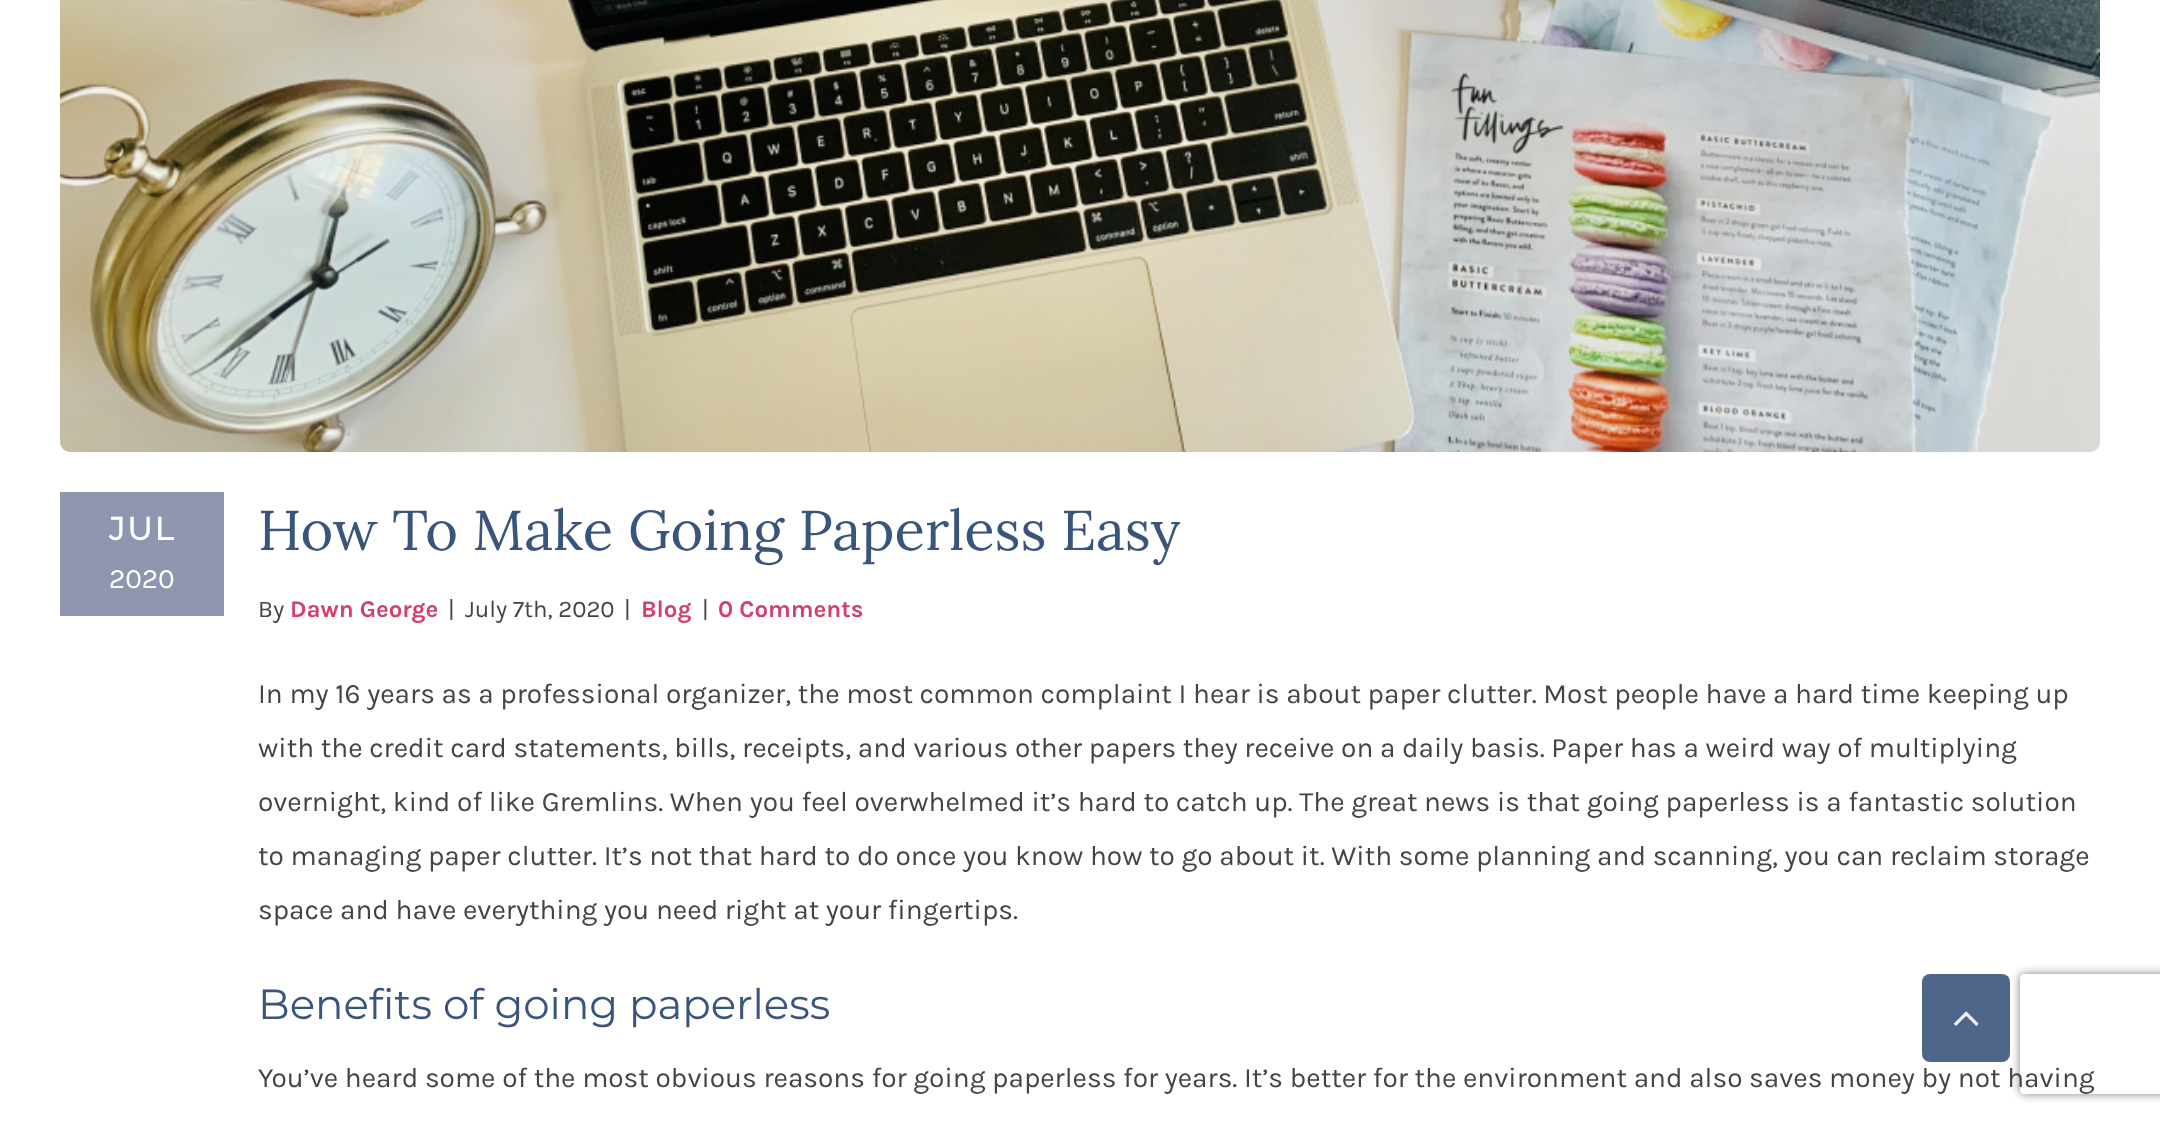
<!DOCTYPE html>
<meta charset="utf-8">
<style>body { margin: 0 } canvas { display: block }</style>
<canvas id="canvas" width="2160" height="1121"></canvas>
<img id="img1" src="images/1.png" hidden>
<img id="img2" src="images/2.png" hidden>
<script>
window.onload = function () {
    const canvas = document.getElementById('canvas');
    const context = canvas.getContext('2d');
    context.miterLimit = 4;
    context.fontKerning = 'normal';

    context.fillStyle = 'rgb(255, 255, 255)';
    context.fillRect(0, 0, 2160, 1121);
    context.drawImage(document.getElementById('img1'), 60, 0, 2040, 452);
    context.fillStyle = 'rgb(144, 150, 175)';
    context.fillRect(60, 492, 164, 124);
    context.save();
    context.beginPath();
    context.moveTo(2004, 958);
    context.lineTo(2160, 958);
    context.lineTo(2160, 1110);
    context.lineTo(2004, 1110);
    context.closePath();
    context.moveTo(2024, 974);
    context.lineTo(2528, 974);
    context.bezierCurveTo(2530, 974, 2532, 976, 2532, 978);
    context.lineTo(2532, 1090);
    context.bezierCurveTo(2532, 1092, 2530, 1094, 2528, 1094);
    context.lineTo(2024, 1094);
    context.bezierCurveTo(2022, 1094, 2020, 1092, 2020, 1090);
    context.lineTo(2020, 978);
    context.bezierCurveTo(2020, 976, 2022, 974, 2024, 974);
    context.closePath();
    context.clip('evenodd');
    context.fillStyle = 'rgb(128, 128, 128)';
    context.filter = 'blur(5px)';
    context.beginPath();
    context.roundRect(2020, 974, 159, 120, 4);
    context.fill();
    context.filter = 'none';
    context.restore();
    context.fillStyle = 'rgb(78, 102, 137)';
    context.beginPath();
    context.roundRect(1922, 974, 88, 88, 8);
    context.fill();
    context.drawImage(document.getElementById('img2'), 1953, 1011, 26, 15);
    context.letterSpacing = '2px';
    context.font = 'bold 32px Montserrat';
    context.fillStyle = 'rgb(255, 255, 255)';
    context.fillText('JUL', 109, 540);
    context.letterSpacing = '0px';
    context.font = '28px Karla';
    context.fillText('2020', 109, 588);
    context.font = '56px Lora';
    context.fillStyle = 'rgb(58, 85, 124)';
    context.fillText('How To Make Going Paperless Easy', 258, 550);
    context.font = '24px Karla';
    context.fillStyle = 'rgb(68, 68, 68)';
    context.fillText('By', 258, 617);
    context.font = 'bold 24px Karla';
    context.fillStyle = 'rgb(209, 65, 106)';
    context.fillText('Dawn George', 290, 617);
    context.font = '24px Karla';
    context.fillStyle = 'rgb(68, 68, 68)';
    context.fillText('|', 448, 617);
    context.fillText('July 7th, 2020', 465, 617);
    context.fillText('|', 624, 617);
    context.font = 'bold 24px Karla';
    context.fillStyle = 'rgb(209, 65, 106)';
    context.fillText('Blog', 641, 617);
    context.font = '24px Karla';
    context.fillStyle = 'rgb(68, 68, 68)';
    context.fillText('|', 702, 617);
    context.font = 'bold 24px Karla';
    context.fillStyle = 'rgb(209, 65, 106)';
    context.fillText('0 Comments', 718, 617);
    context.font = '28px Karla';
    context.fillStyle = 'rgb(68, 68, 68)';
    context.fillText('In my 16 years as a professional organizer, the most common complaint I hear is about paper clutter. Most people have a hard time keeping up', 258, 703);
    context.fillText('with the credit card statements, bills, receipts, and various other papers they receive on a daily basis. Paper has a weird way of multiplying', 258, 757);
    context.fillText('overnight, kind of like Gremlins. When you feel overwhelmed it’s hard to catch up. The great news is that going paperless is a fantastic solution', 258, 811);
    context.fillText('to managing paper clutter. It’s not that hard to do once you know how to go about it. With some planning and scanning, you can reclaim storage', 258, 865);
    context.fillText('space and have everything you need right at your fingertips.', 258, 919);
    context.font = '100 42px Montserrat';
    context.fillStyle = 'rgb(58, 85, 124)';
    context.fillText('Benefits of going paperless', 258, 1019);
    context.font = '28px Karla';
    context.fillStyle = 'rgb(68, 68, 68)';
    context.fillText('You’ve heard some of the most obvious reasons for going paperless for years. It’s better for the environment and also saves money by not having', 258, 1087);
};
</script>
